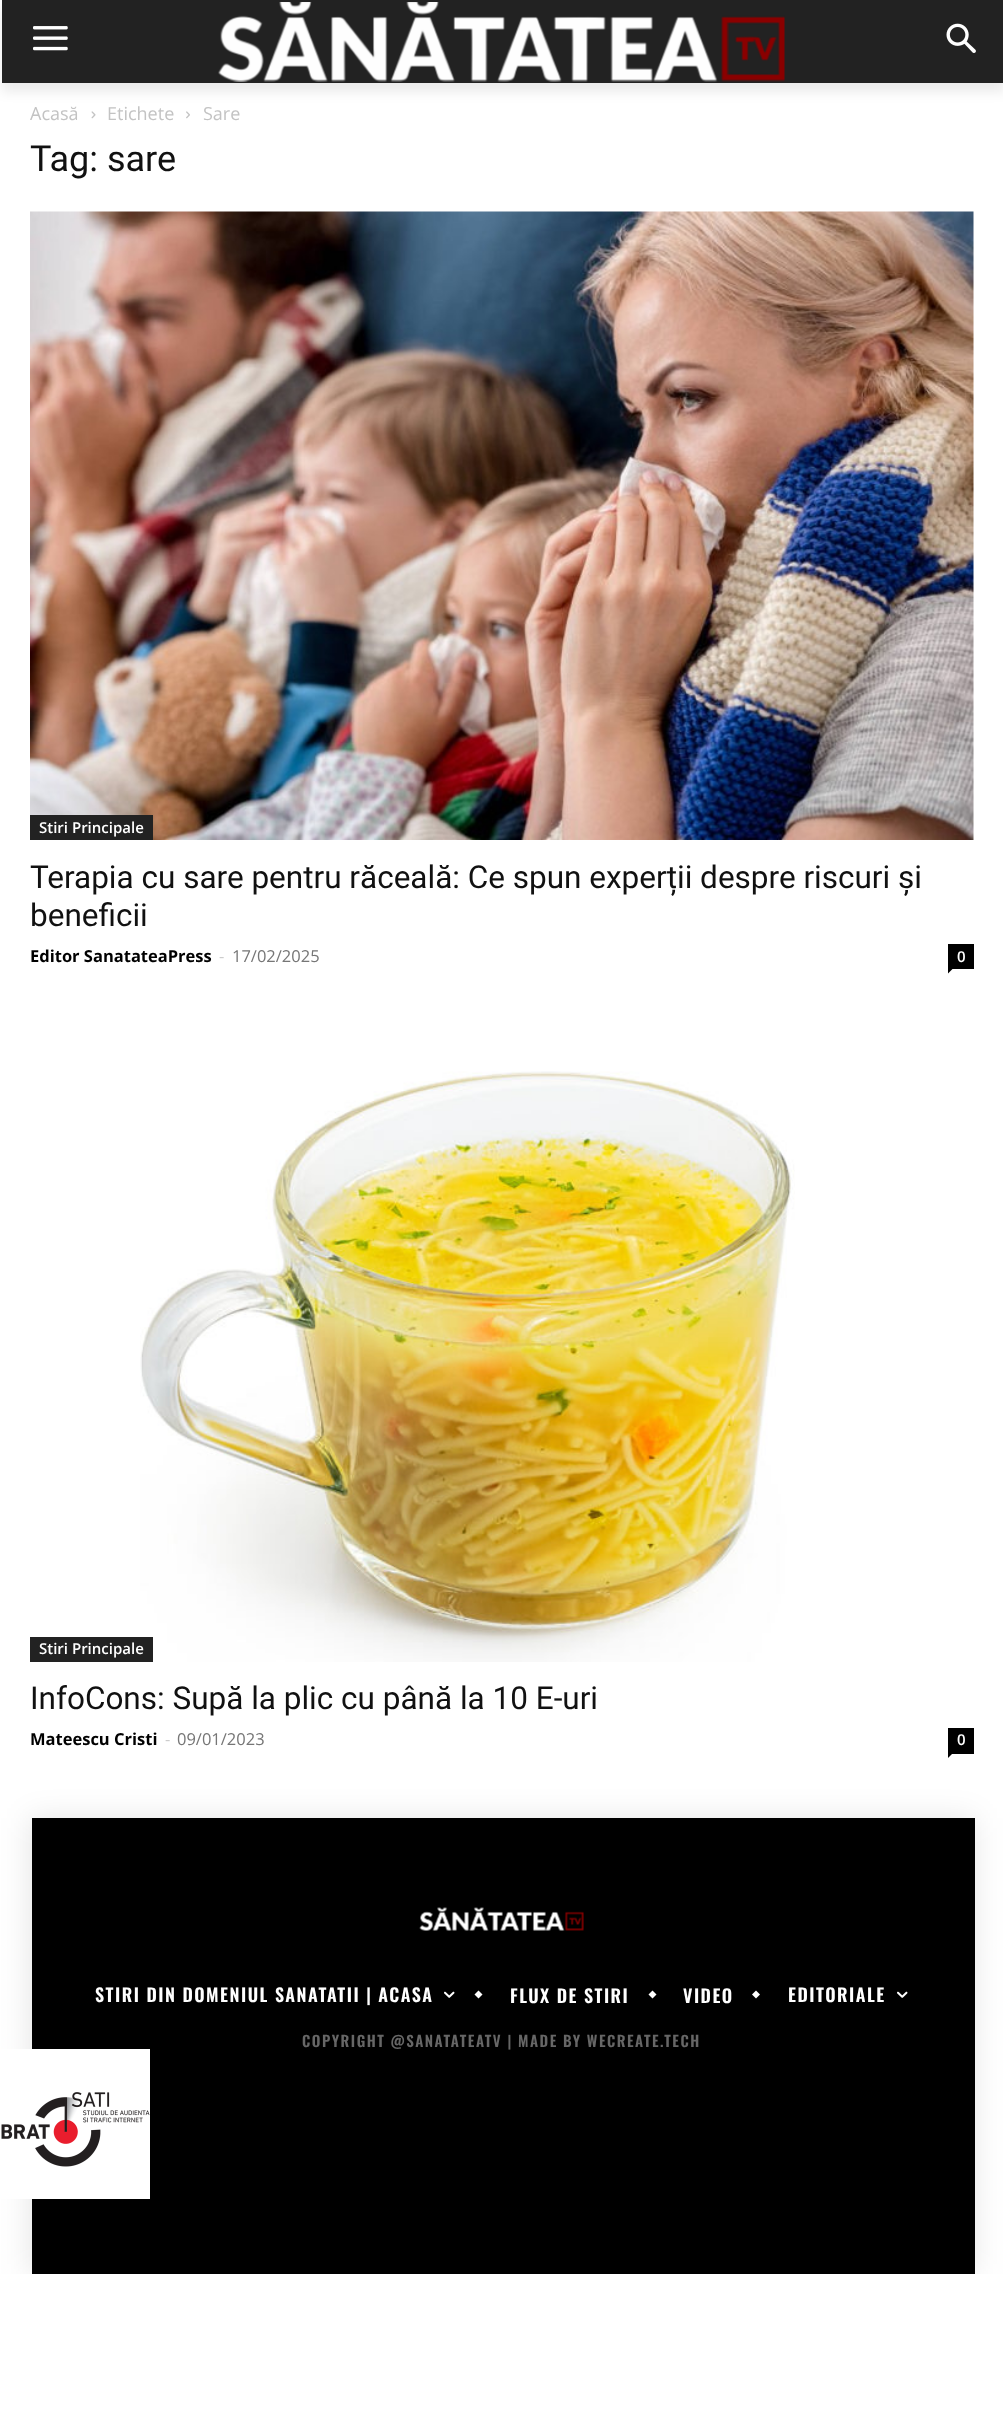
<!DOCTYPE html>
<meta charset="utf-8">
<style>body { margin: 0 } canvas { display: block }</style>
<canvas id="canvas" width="1003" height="2436"></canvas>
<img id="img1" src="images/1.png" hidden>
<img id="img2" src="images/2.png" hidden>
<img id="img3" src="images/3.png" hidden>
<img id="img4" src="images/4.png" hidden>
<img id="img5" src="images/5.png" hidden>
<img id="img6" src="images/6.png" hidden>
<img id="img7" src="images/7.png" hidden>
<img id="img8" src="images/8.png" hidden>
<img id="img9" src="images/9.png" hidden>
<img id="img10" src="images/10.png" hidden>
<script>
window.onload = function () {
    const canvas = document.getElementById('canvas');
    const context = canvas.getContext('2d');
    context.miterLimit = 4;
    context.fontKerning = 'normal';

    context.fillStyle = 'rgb(255, 255, 255)';
    context.fillRect(0, 0, 1003, 2436);
    context.fillStyle = 'rgb(34, 34, 34)';
    context.fillRect(2, 0, 1001, 83);
    context.drawImage(document.getElementById('img1'), 33, 26, 35, 25);
    context.drawImage(document.getElementById('img2'), 218, 2, 567, 80);
    context.drawImage(document.getElementById('img3'), 946, 23, 30, 30);
    context.save();
    context.beginPath();
    context.moveTo(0, 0);
    context.lineTo(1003, 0);
    context.lineTo(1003, 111);
    context.lineTo(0, 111);
    context.closePath();
    context.moveTo(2, 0);
    context.lineTo(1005, 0);
    context.lineTo(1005, 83);
    context.lineTo(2, 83);
    context.closePath();
    context.clip('evenodd');
    context.fillStyle = 'rgba(0, 0, 0, 0.08)';
    context.filter = 'blur(6px)';
    context.beginPath();
    context.rect(2, 9, 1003, 83);
    context.fill();
    context.filter = 'none';
    context.restore();
    context.drawImage(document.getElementById('img4'), 91, 111, 5, 8);
    context.drawImage(document.getElementById('img5'), 186, 111, 4, 8);
    context.drawImage(document.getElementById('img6'), 30, 211, 944, 629);
    context.fillRect(30, 815, 123, 25);
    context.fillStyle = 'rgb(0, 0, 0)';
    context.fillRect(948, 944, 26, 25);
    context.beginPath();
    context.moveTo(948, 969);
    context.lineTo(952.5, 969);
    context.lineTo(948, 973.5);
    context.closePath();
    context.fill();
    context.drawImage(document.getElementById('img7'), 140, 1071, 655, 591);
    context.fillStyle = 'rgb(34, 34, 34)';
    context.fillRect(30, 1637, 123, 25);
    context.fillStyle = 'rgb(0, 0, 0)';
    context.fillRect(948, 1728, 26, 26);
    context.beginPath();
    context.moveTo(948, 1753.5);
    context.lineTo(952.5, 1753.5);
    context.lineTo(948, 1758);
    context.closePath();
    context.fill();
    context.save();
    context.beginPath();
    context.rect(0, 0, 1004, 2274);
    context.clip();
    context.fillStyle = 'rgba(0, 0, 0, 0.1)';
    context.filter = 'blur(15px)';
    context.beginPath();
    context.rect(30, 1818, 944, 456);
    context.fill();
    context.filter = 'none';
    context.restore();
    context.fillRect(32, 1818, 943, 456);
    context.drawImage(document.getElementById('img8'), 419, 1907, 165, 24);
    context.drawImage(document.getElementById('img9'), 444, 1991, 11, 7);
    context.fillStyle = 'rgb(255, 255, 255)';
    context.beginPath();
    context.moveTo(482.5, 1994.5);
    context.lineTo(478.5, 1998.5);
    context.lineTo(474.5, 1994.5);
    context.lineTo(478.5, 1990.5);
    context.closePath();
    context.fill();
    context.beginPath();
    context.moveTo(656.5, 1994.5);
    context.lineTo(652.5, 1998.5);
    context.lineTo(648.5, 1994.5);
    context.lineTo(652.5, 1990.5);
    context.closePath();
    context.fill();
    context.beginPath();
    context.moveTo(760, 1994.5);
    context.lineTo(756, 1998.5);
    context.lineTo(752, 1994.5);
    context.lineTo(756, 1990.5);
    context.closePath();
    context.fill();
    context.drawImage(document.getElementById('img9'), 897, 1991, 11, 7);
    context.drawImage(document.getElementById('img10'), 1, 2049, 149, 150);
    context.font = '18px Open Sans';
    context.fillStyle = 'rgb(195, 195, 195)';
    context.fillText('Acasă', 30, 120);
    context.fillText('Etichete', 107, 120);
    context.fillText('Sare', 203, 120);
    context.font = '36px Roboto';
    context.fillStyle = 'rgb(17, 17, 17)';
    context.fillText('Tag: sare', 30, 171);
    context.font = '600 15px Open Sans';
    context.fillStyle = 'rgb(255, 255, 255)';
    context.fillText('Stiri Principale', 39, 833);
    context.font = '31.5px Roboto';
    context.fillStyle = 'rgb(17, 17, 17)';
    context.fillText('Terapia cu sare pentru răceală: Ce spun experții despre riscuri și', 30, 888);
    context.fillText('beneficii', 30, 926);
    context.font = 'bold 16.5px Open Sans';
    context.fillStyle = 'rgb(0, 0, 0)';
    context.fillText('Editor SanatateaPress', 30, 962);
    context.font = '16.5px Open Sans';
    context.fillStyle = 'rgb(204, 204, 204)';
    context.fillText('-', 219, 962);
    context.fillStyle = 'rgb(118, 118, 118)';
    context.fillText('17/02/2025', 232, 962);
    context.font = '600 15px Open Sans';
    context.fillStyle = 'rgb(255, 255, 255)';
    context.fillText('0', 957, 962);
    context.fillText('Stiri Principale', 39, 1654);
    context.font = '31.5px Roboto';
    context.fillStyle = 'rgb(17, 17, 17)';
    context.fillText('InfoCons: Supă la plic cu până la 10 E-uri', 30, 1709);
    context.font = 'bold 16.5px Open Sans';
    context.fillStyle = 'rgb(0, 0, 0)';
    context.fillText('Mateescu Cristi', 30, 1745);
    context.font = '16.5px Open Sans';
    context.fillStyle = 'rgb(204, 204, 204)';
    context.fillText('-', 165, 1745);
    context.fillStyle = 'rgb(118, 118, 118)';
    context.fillText('09/01/2023', 177, 1745);
    context.font = '600 15px Open Sans';
    context.fillStyle = 'rgb(255, 255, 255)';
    context.fillText('0', 957, 1745);
    context.letterSpacing = '1.5px';
    context.font = '600 18px Oswald';
    context.fillText('STIRI DIN DOMENIUL SANATATII | ACASA', 95, 2002);
    context.fillText('FLUX DE STIRI', 510, 2003);
    context.fillText('VIDEO', 683, 2003);
    context.fillText('EDITORIALE', 788, 2002);
    context.font = '600 15px Oswald';
    context.fillStyle = 'rgb(102, 102, 102)';
    context.fillText('COPYRIGHT @SANATATEATV | MADE BY WECREATE.TECH', 302, 2047);
};
</script>
